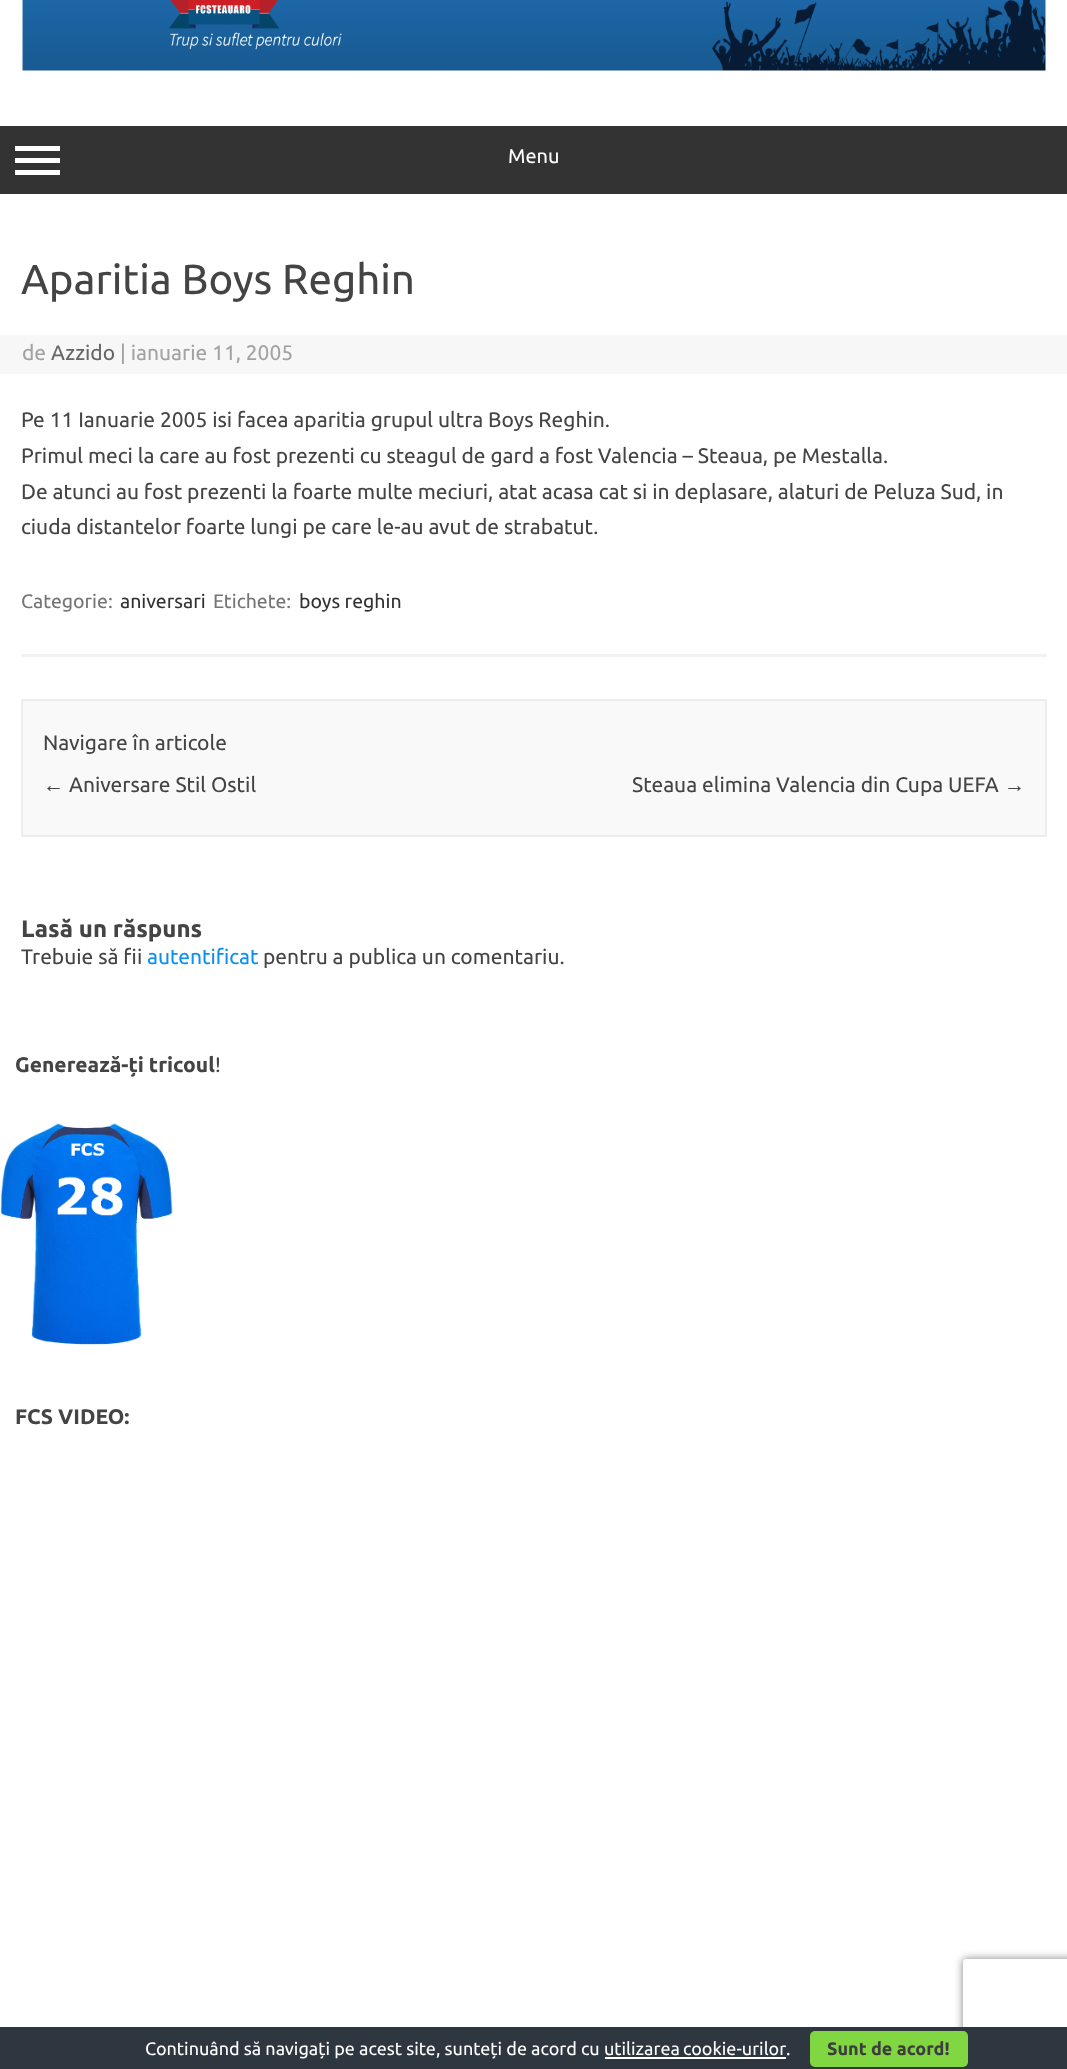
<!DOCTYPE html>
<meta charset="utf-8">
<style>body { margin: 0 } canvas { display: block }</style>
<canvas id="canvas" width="1067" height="2069"></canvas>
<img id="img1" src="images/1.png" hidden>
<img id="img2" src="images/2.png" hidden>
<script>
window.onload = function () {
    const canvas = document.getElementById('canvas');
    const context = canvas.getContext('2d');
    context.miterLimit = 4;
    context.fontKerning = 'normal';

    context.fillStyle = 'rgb(255, 255, 255)';
    context.fillRect(0, 0, 1067, 2069);
    context.drawImage(document.getElementById('img1'), 22, 0, 1024, 71);
    context.fillStyle = 'rgb(51, 51, 51)';
    context.fillRect(0, 126, 1067, 68);
    context.fillStyle = 'rgb(255, 255, 255)';
    context.fillRect(15, 146, 45, 5);
    context.fillRect(15, 158, 45, 5);
    context.fillRect(15, 170, 45, 5);
    context.fillStyle = 'rgb(243, 243, 243)';
    context.fillRect(21, 654, 1026, 3);
    context.fillStyle = 'rgb(247, 247, 247)';
    context.fillRect(0, 335, 1067, 39);
    context.fillStyle = 'rgb(249, 249, 249)';
    context.beginPath();
    context.rect(22, 700, 1024, 136);
    context.fill();
    context.strokeStyle = 'rgb(237, 237, 237)';
    context.lineWidth = 2;
    context.stroke();
    context.drawImage(document.getElementById('img2'), 0, 1123, 174, 222);
    context.save();
    context.beginPath();
    context.moveTo(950, 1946);
    context.lineTo(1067, 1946);
    context.lineTo(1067, 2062);
    context.lineTo(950, 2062);
    context.closePath();
    context.moveTo(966, 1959);
    context.lineTo(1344, 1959);
    context.bezierCurveTo(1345.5, 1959, 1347, 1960.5, 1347, 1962);
    context.lineTo(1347, 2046);
    context.bezierCurveTo(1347, 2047.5, 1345.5, 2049, 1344, 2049);
    context.lineTo(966, 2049);
    context.bezierCurveTo(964.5, 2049, 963, 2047.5, 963, 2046);
    context.lineTo(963, 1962);
    context.bezierCurveTo(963, 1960.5, 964.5, 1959, 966, 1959);
    context.closePath();
    context.clip('evenodd');
    context.fillStyle = 'rgb(128, 128, 128)';
    context.filter = 'blur(4px)';
    context.beginPath();
    context.roundRect(963, 1959, 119, 90, 3);
    context.fill();
    context.filter = 'none';
    context.restore();
    context.fillStyle = 'rgb(46, 54, 63)';
    context.fillRect(0, 2027, 1067, 42);
    context.fillStyle = 'rgb(255, 255, 255)';
    context.fillRect(605, 2057, 181, 2);
    context.fillStyle = 'rgb(129, 215, 66)';
    context.beginPath();
    context.roundRect(810, 2031, 158, 36, 5);
    context.fill();
    context.font = '20px Ubuntu';
    context.fillStyle = 'rgb(255, 255, 255)';
    context.fillText('Menu', 508, 163);
    context.font = '42px Ubuntu';
    context.fillStyle = 'rgb(68, 68, 68)';
    context.fillText('Aparitia Boys Reghin', 21, 294);
    context.font = '21px Ubuntu';
    context.fillStyle = 'rgb(162, 162, 162)';
    context.fillText('de', 22, 360);
    context.fillStyle = 'rgb(102, 102, 102)';
    context.fillText('Azzido', 51, 360);
    context.fillStyle = 'rgb(162, 162, 162)';
    context.fillText('| ianuarie 11, 2005', 120, 360);
    context.fillStyle = 'rgb(68, 68, 68)';
    context.fillText('Pe 11 Ianuarie 2005 isi facea aparitia grupul ultra Boys Reghin.', 21, 427);
    context.fillText('Primul meci la care au fost prezenti cu steagul de gard a fost Valencia – Steaua, pe Mestalla.', 21, 463);
    context.fillText('De atunci au fost prezenti la foarte multe meciuri, atat acasa cat si in deplasare, alaturi de Peluza Sud, in', 21, 499);
    context.fillText('ciuda distantelor foarte lungi pe care le-au avut de strabatut.', 21, 534);
    context.font = '19.5px Ubuntu';
    context.fillStyle = 'rgb(117, 117, 117)';
    context.fillText('Categorie:', 21, 608);
    context.fillStyle = 'rgb(51, 51, 51)';
    context.fillText('aniversari', 120, 608);
    context.fillStyle = 'rgb(117, 117, 117)';
    context.fillText('Etichete:', 213, 608);
    context.fillStyle = 'rgb(51, 51, 51)';
    context.fillText('boys reghin', 299, 608);
    context.font = '21px Ubuntu';
    context.fillStyle = 'rgb(68, 68, 68)';
    context.fillText('Navigare în articole', 43, 750);
    context.font = '21px Liberation Sans';
    context.fillText('←', 43, 792);
    context.font = '21px Ubuntu';
    context.fillText('Aniversare Stil Ostil', 69, 792);
    context.fillText('Steaua elimina Valencia din Cupa UEFA', 632, 792);
    context.font = '21px Liberation Sans';
    context.fillText('→', 1004, 792);
    context.font = 'bold 24px Ubuntu';
    context.fillText('Lasă un răspuns', 21, 937);
    context.font = '21px Ubuntu';
    context.fillText('Trebuie să fii', 21, 964);
    context.fillStyle = 'rgb(11, 145, 234)';
    context.fillText('autentificat', 147, 964);
    context.fillStyle = 'rgb(68, 68, 68)';
    context.fillText('pentru a publica un comentariu.', 263, 964);
    context.font = 'bold 21px Ubuntu';
    context.fillText('Generează-ți tricoul', 15, 1072);
    context.font = '21px Ubuntu';
    context.fillText('!', 215, 1072);
    context.font = 'bold 21px Ubuntu';
    context.fillText('FCS VIDEO:', 15, 1424);
    context.font = '18px Ubuntu';
    context.fillStyle = 'rgb(255, 255, 255)';
    context.fillText('Continuând să navigați pe acest site, sunteți de acord cu', 145, 2055);
    context.wordSpacing = '-1px';
    context.fillText('utilizarea cookie-urilor', 604, 2055);
    context.wordSpacing = '0px';
    context.fillText('.', 786, 2055);
    context.font = 'bold 18px Ubuntu';
    context.fillStyle = 'rgb(61, 61, 61)';
    context.fillText('Sunt de acord!', 827, 2055);
};
</script>
